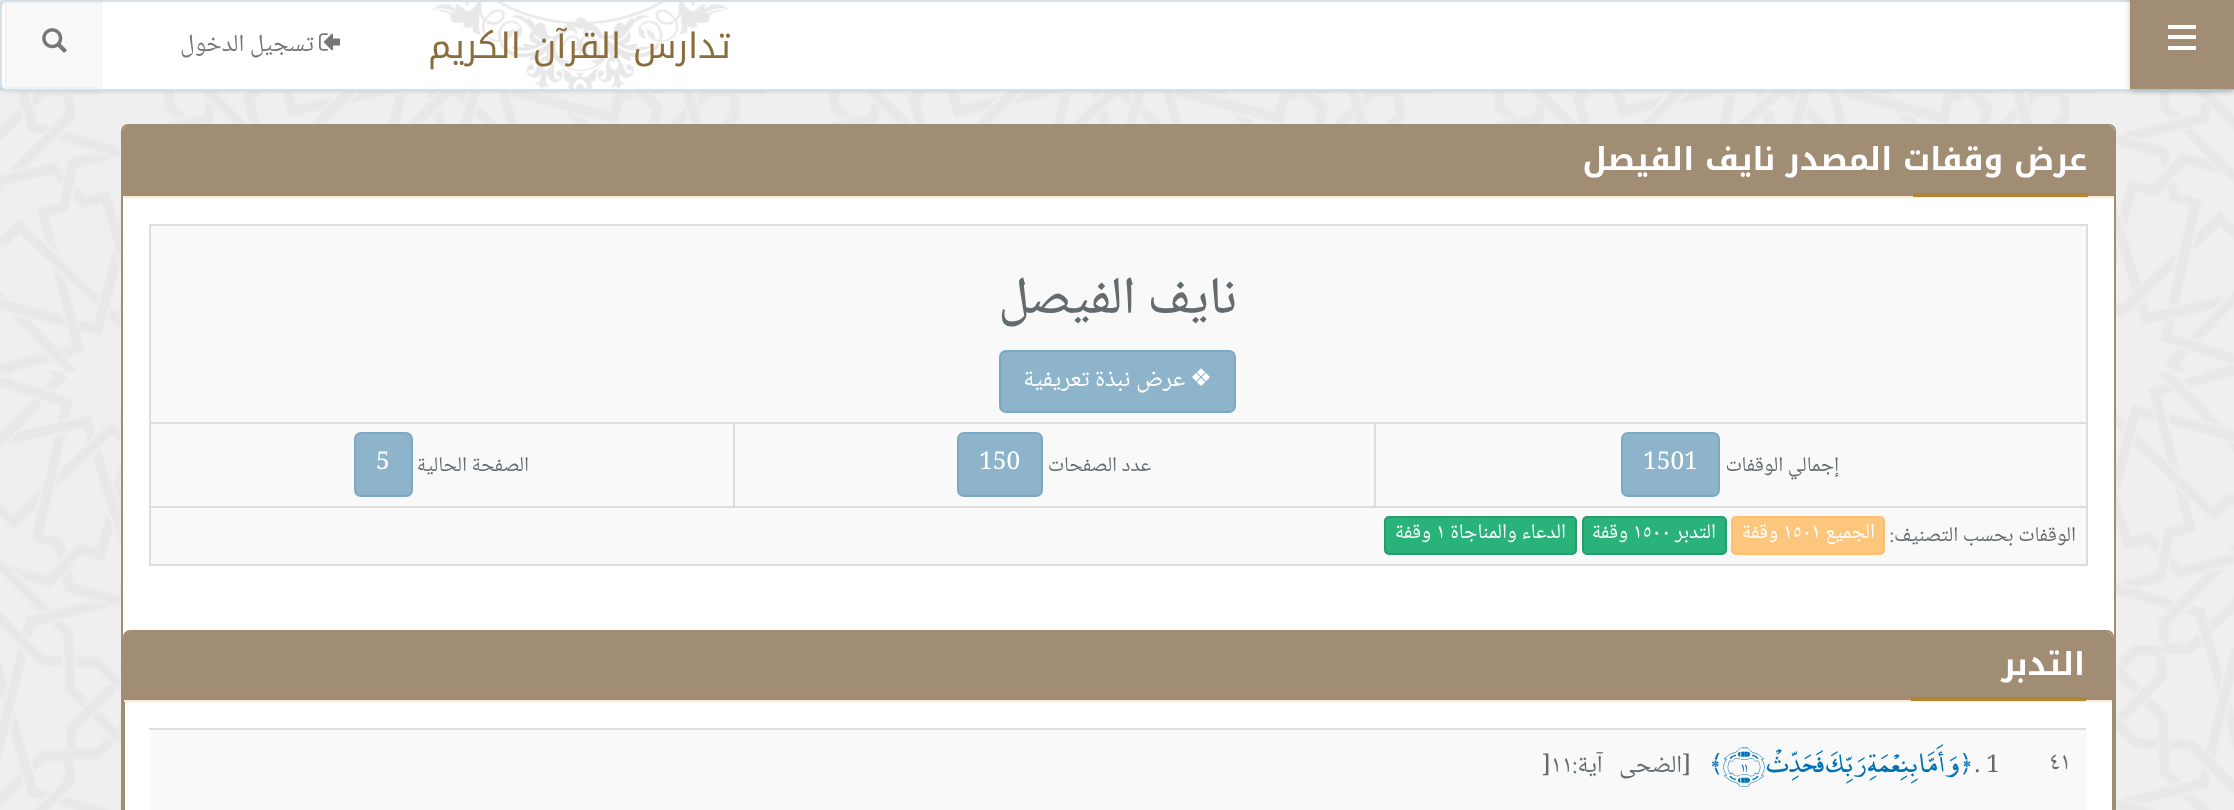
<!DOCTYPE html>
<meta charset="utf-8">
<style>body { margin: 0 } canvas { display: block }</style>
<canvas id="canvas" width="2234" height="810"></canvas>
<img id="img1" src="images/1.png" hidden>
<img id="img2" src="images/2.png" hidden>
<img id="img3" src="images/3.png" hidden>
<img id="img4" src="images/4.png" hidden>
<script>
window.onload = function () {
    const canvas = document.getElementById('canvas');
    const context = canvas.getContext('2d');
    context.miterLimit = 4;
    context.fontKerning = 'normal';

    context.fillStyle = 'rgb(239, 239, 239)';
    context.fillRect(0, 0, 2234, 810);
    context.drawImage(document.getElementById('img1'), 0, 0, 2234, 810);
    context.fillStyle = 'rgb(221, 221, 221)';
    context.fillRect(0, 88, 2234, 2);
    context.fillStyle = 'rgba(6, 8, 8, 0.15)';
    context.filter = 'blur(2px)';
    context.beginPath();
    context.roundRect(0, 0, 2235, 91, 7);
    context.fill();
    context.filter = 'none';
    context.fillStyle = 'rgb(255, 255, 255)';
    context.beginPath();
    context.roundRect(1, 1, 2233, 89, 6);
    context.fill();
    context.strokeStyle = 'rgb(211, 224, 233)';
    context.lineWidth = 2;
    context.stroke();
    context.fillStyle = 'rgba(0, 0, 0, 0.2)';
    context.filter = 'blur(3.5px)';
    context.beginPath();
    context.rect(2130, -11, 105, 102);
    context.fill();
    context.filter = 'none';
    context.fillStyle = 'rgb(161, 140, 116)';
    context.fillRect(2130, 0, 104, 89);
    context.fillStyle = 'rgb(255, 255, 255)';
    context.fillRect(2168, 35, 28, 4);
    context.fillRect(2168, 25, 28, 4);
    context.fillRect(2168, 46, 28, 4);
    context.drawImage(document.getElementById('img2'), 432, 2, 297, 87);
    context.drawImage(document.getElementById('img3'), 319, 33, 21, 18);
    context.fillStyle = 'rgb(249, 249, 249)';
    context.fillRect(7, 4, 94, 83);
    context.save();
    context.beginPath();
    context.rect(2, 2, 100, 87);
    context.clip();
    context.strokeStyle = 'rgb(242, 242, 242)';
    context.strokeRect(6, 3, 96, 85);
    context.restore();
    context.drawImage(document.getElementById('img4'), 42, 28, 25, 25);
    context.fillStyle = 'rgb(255, 255, 255)';
    context.beginPath();
    context.roundRect(122, 125, 1993, 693, 6);
    context.fill();
    context.strokeStyle = 'rgb(161, 140, 116)';
    context.stroke();
    context.fillStyle = 'rgb(161, 140, 116)';
    context.beginPath();
    context.roundRect(123, 126, 1991, 72, [5, 5, 0, 0]);
    context.fill();
    context.fillStyle = 'rgb(250, 235, 204)';
    context.fillRect(123, 196, 1991, 2);
    context.fillStyle = 'rgb(177, 135, 52)';
    context.fillRect(1913, 193, 175, 4);
    context.fillStyle = 'rgb(249, 249, 249)';
    context.fillRect(151, 226, 1935, 338);
    context.fillStyle = 'rgb(221, 221, 221)';
    context.fillRect(149, 224, 1939, 2);
    context.fillRect(2086, 224, 2, 341);
    context.fillRect(149, 564, 1939, 2);
    context.fillRect(149, 224, 2, 341);
    context.fillStyle = 'rgb(142, 180, 203)';
    context.beginPath();
    context.roundRect(1000, 351, 235, 61, 6);
    context.fill();
    context.strokeStyle = 'rgb(125, 168, 195)';
    context.stroke();
    context.fillStyle = 'rgb(221, 221, 221)';
    context.fillRect(149, 422, 586, 2);
    context.fillRect(149, 506, 1939, 2);
    context.fillRect(733, 422, 2, 86);
    context.fillRect(733, 422, 643, 2);
    context.fillRect(1374, 422, 2, 86);
    context.fillRect(1374, 422, 714, 2);
    context.fillStyle = 'rgb(142, 180, 203)';
    context.beginPath();
    context.roundRect(1622, 433, 97, 63, 6);
    context.fill();
    context.stroke();
    context.beginPath();
    context.roundRect(958, 433, 84, 63, 6);
    context.fill();
    context.stroke();
    context.beginPath();
    context.roundRect(355, 433, 57, 63, 6);
    context.fill();
    context.stroke();
    context.fillStyle = 'rgb(252, 198, 125)';
    context.beginPath();
    context.roundRect(1732, 517, 152, 37, 4);
    context.fill();
    context.strokeStyle = 'rgb(252, 191, 109)';
    context.stroke();
    context.fillStyle = 'rgb(42, 178, 123)';
    context.beginPath();
    context.roundRect(1583, 517, 143, 37, 4);
    context.fill();
    context.strokeStyle = 'rgb(37, 157, 109)';
    context.stroke();
    context.beginPath();
    context.roundRect(1385, 517, 191, 37, 4);
    context.fill();
    context.stroke();
    context.beginPath();
    context.roundRect(124, 631, 1989, 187, 6);
    context.strokeStyle = 'rgb(161, 140, 116)';
    context.stroke();
    context.fillStyle = 'rgb(161, 140, 116)';
    context.beginPath();
    context.roundRect(124, 632, 1988, 70, [5, 5, 0, 0]);
    context.fill();
    context.fillStyle = 'rgb(250, 235, 204)';
    context.fillRect(124, 700, 1988, 2);
    context.fillStyle = 'rgb(177, 135, 52)';
    context.fillRect(1911, 697, 175, 4);
    context.fillStyle = 'rgb(249, 249, 249)';
    context.fillRect(151, 730, 1935, 80);
    context.fillStyle = 'rgb(221, 221, 221)';
    context.fillRect(149, 728, 1937, 2);
    context.direction = 'rtl';
    context.font = '35px Noto Kufi Arabic';
    context.fillStyle = 'rgb(138, 109, 59)';
    context.fillText('تدارس القرآن الكريم', 731, 58);
    context.font = '24.5px Noto Naskh Arabic';
    context.fillStyle = 'rgb(119, 119, 119)';
    context.fillText('تسجيل الدخول', 314, 51);
    context.font = 'bold 31.5px Noto Kufi Arabic';
    context.fillStyle = 'rgb(255, 255, 255)';
    context.fillText('عرض وقفات المصدر نايف الفيصل', 2087, 170);
    context.font = '500 52.5px Noto Naskh Arabic';
    context.fillStyle = 'rgb(99, 107, 111)';
    context.fillText('نايف الفيصل', 1237, 313);
    context.font = '24.5px DejaVu Sans';
    context.fillStyle = 'rgb(255, 255, 255)';
    context.fillText('❖', 1212, 386);
    context.font = '24.5px Noto Naskh Arabic';
    context.fillText('عرض نبذة تعريفية', 1185, 386);
    context.font = '21px Noto Naskh Arabic';
    context.fillStyle = 'rgb(99, 107, 111)';
    context.fillText('إجمالي الوقفات', 1839, 471);
    context.direction = 'ltr';
    context.font = '24.5px Noto Naskh Arabic';
    context.fillStyle = 'rgb(255, 255, 255)';
    context.fillText('1501', 1643, 469);
    context.direction = 'rtl';
    context.font = '21px Noto Naskh Arabic';
    context.fillStyle = 'rgb(99, 107, 111)';
    context.fillText('عدد الصفحات', 1151, 471);
    context.direction = 'ltr';
    context.font = '24.5px Noto Naskh Arabic';
    context.fillStyle = 'rgb(255, 255, 255)';
    context.fillText('150', 979, 469);
    context.direction = 'rtl';
    context.font = '21px Noto Naskh Arabic';
    context.fillStyle = 'rgb(99, 107, 111)';
    context.fillText('الصفحة الحالية', 529, 471);
    context.direction = 'ltr';
    context.font = '24.5px Noto Naskh Arabic';
    context.fillStyle = 'rgb(255, 255, 255)';
    context.fillText('5', 376, 469);
    context.direction = 'rtl';
    context.font = '21px Noto Naskh Arabic';
    context.fillStyle = 'rgb(99, 107, 111)';
    context.fillText('الوقفات بحسب التصنيف:', 2076, 541);
    context.fillStyle = 'rgb(255, 255, 255)';
    context.fillText('الجميع', 1875, 538);
    context.direction = 'ltr';
    context.fillText('١٥٠١', 1783, 538);
    context.direction = 'rtl';
    context.fillText('وقفة', 1778, 538);
    context.fillText('التدبر', 1716, 538);
    context.direction = 'ltr';
    context.fillText('١٥٠٠', 1633, 538);
    context.direction = 'rtl';
    context.fillText('وقفة', 1628, 538);
    context.fillText('الدعاء والمناجاة', 1566, 538);
    context.direction = 'ltr';
    context.fillText('١', 1436, 538);
    context.direction = 'rtl';
    context.fillText('وقفة', 1431, 538);
    context.font = 'bold 31.5px Noto Kufi Arabic';
    context.fillText('التدبر', 2085, 675);
    context.direction = 'ltr';
    context.font = '24.5px Noto Naskh Arabic';
    context.fillStyle = 'rgb(99, 107, 111)';
    context.fillText('٤١', 2049, 769);
    context.fillText('. 1', 1974, 772);
    context.font = '24.5px Cascadia Code';
    context.fillStyle = 'rgb(0, 115, 183)';
    context.fillText('﴿', 1959, 772);
    context.font = '24.5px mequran';
    context.fillText('﴾ ١١', 1723, 772);
    context.direction = 'rtl';
    context.fillText('وَأَمَّا بِنِعْمَةِ رَبِّكَ فَحَدِّثْ ﴿', 1959, 772);
    context.direction = 'ltr';
    context.font = '24.5px Cascadia Code';
    context.fillText('﴾', 1709, 772);
    context.direction = 'rtl';
    context.font = '24.5px Noto Naskh Arabic';
    context.fillStyle = 'rgb(99, 107, 111)';
    context.fillText('[الضحى   آية:', 1691, 772);
    context.direction = 'ltr';
    context.fillText(']١١', 1542, 772);
};
</script>
